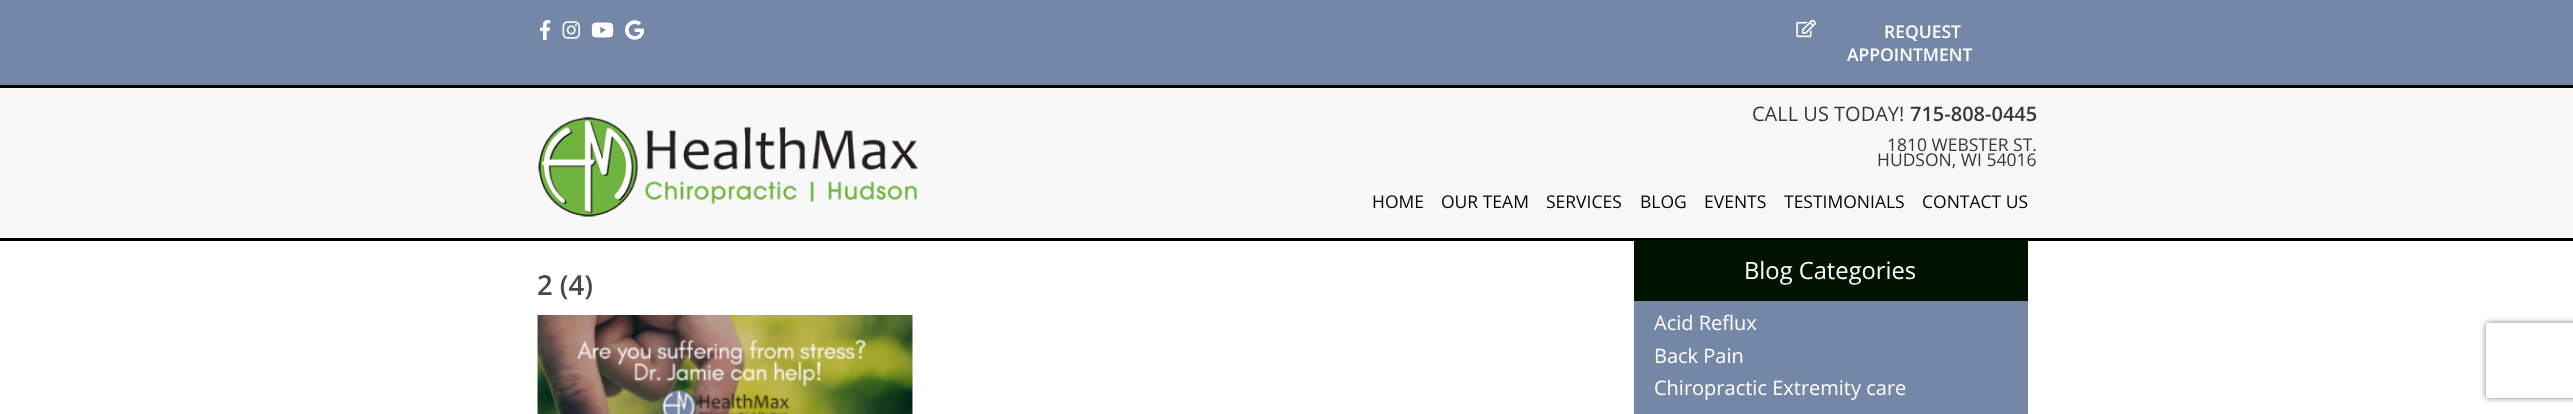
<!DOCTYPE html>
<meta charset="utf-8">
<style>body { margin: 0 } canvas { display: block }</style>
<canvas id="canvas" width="2573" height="414"></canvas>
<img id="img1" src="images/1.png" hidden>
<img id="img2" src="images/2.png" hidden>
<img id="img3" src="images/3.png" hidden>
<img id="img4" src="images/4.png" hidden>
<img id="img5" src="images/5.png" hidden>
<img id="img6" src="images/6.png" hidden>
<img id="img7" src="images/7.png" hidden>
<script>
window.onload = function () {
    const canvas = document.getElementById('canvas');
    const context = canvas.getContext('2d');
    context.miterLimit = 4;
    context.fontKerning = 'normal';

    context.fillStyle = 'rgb(255, 255, 255)';
    context.fillRect(0, 0, 2573, 414);
    context.fillStyle = 'rgb(116, 135, 167)';
    context.fillRect(0, 0, 2573, 85);
    context.fillStyle = 'rgb(0, 0, 0)';
    context.fillRect(0, 85, 2573, 3);
    context.drawImage(document.getElementById('img1'), 540, 20, 11, 20);
    context.drawImage(document.getElementById('img2'), 562, 21, 18, 18);
    context.drawImage(document.getElementById('img3'), 591, 22, 23, 16);
    context.drawImage(document.getElementById('img4'), 625, 20, 20, 20);
    context.drawImage(document.getElementById('img5'), 1796, 19, 20, 19);
    context.fillStyle = 'rgb(248, 248, 248)';
    context.fillRect(0, 88, 2573, 150);
    context.fillStyle = 'rgb(0, 0, 0)';
    context.fillRect(0, 238, 2573, 3);
    context.drawImage(document.getElementById('img6'), 538, 116, 380, 101);
    context.drawImage(document.getElementById('img7'), 537, 315, 376, 99);
    context.fillStyle = 'rgb(116, 135, 167)';
    context.fillRect(1634, 301, 394, 113);
    context.fillStyle = 'rgb(0, 18, 0)';
    context.fillRect(1634, 240, 394, 61);
    context.save();
    context.beginPath();
    context.moveTo(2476, 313);
    context.lineTo(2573, 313);
    context.lineTo(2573, 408);
    context.lineTo(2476, 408);
    context.closePath();
    context.moveTo(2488.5, 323);
    context.lineTo(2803.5, 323);
    context.bezierCurveTo(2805, 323, 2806, 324, 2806, 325.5);
    context.lineTo(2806, 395.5);
    context.bezierCurveTo(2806, 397, 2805, 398, 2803.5, 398);
    context.lineTo(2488.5, 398);
    context.bezierCurveTo(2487, 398, 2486, 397, 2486, 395.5);
    context.lineTo(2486, 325.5);
    context.bezierCurveTo(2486, 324, 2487, 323, 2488.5, 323);
    context.closePath();
    context.clip('evenodd');
    context.fillStyle = 'rgb(128, 128, 128)';
    context.filter = 'blur(3px)';
    context.beginPath();
    context.roundRect(2486, 323, 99, 75, 2.5);
    context.fill();
    context.filter = 'none';
    context.restore();
    context.font = '600 17.5px Open Sans';
    context.fillStyle = 'rgb(255, 255, 255)';
    context.fillText('REQUEST', 1884, 38);
    context.fillText('APPOINTMENT', 1847, 61);
    context.font = '20px Open Sans';
    context.fillStyle = 'rgb(55, 55, 55)';
    context.fillText('CALL US TODAY!', 1752, 121);
    context.font = '600 20px Open Sans';
    context.fillText('715-808-0445', 1910, 121);
    context.font = '17.5px Open Sans';
    context.fillText('1810 WEBSTER ST.', 1887, 151);
    context.fillText('HUDSON, WI 54016', 1877, 166);
    context.fillStyle = 'rgb(0, 0, 0)';
    context.fillText('HOME', 1372, 208);
    context.fillText('OUR TEAM', 1441, 208);
    context.fillText('SERVICES', 1546, 208);
    context.fillText('BLOG', 1640, 208);
    context.fillText('EVENTS', 1704, 208);
    context.fillText('TESTIMONIALS', 1784, 208);
    context.fillText('CONTACT US', 1922, 208);
    context.font = '600 27.5px Open Sans';
    context.fillStyle = 'rgb(72, 72, 72)';
    context.fillText('2 (4)', 537, 295);
    context.font = '23.75px Open Sans';
    context.fillStyle = 'rgb(255, 255, 255)';
    context.fillText('Blog Categories', 1744, 279);
    context.font = '20px Open Sans';
    context.fillText('Acid Reflux', 1654, 330);
    context.fillText('Back Pain', 1654, 363);
    context.fillText('Chiropractic Extremity care', 1654, 395);
};
</script>
